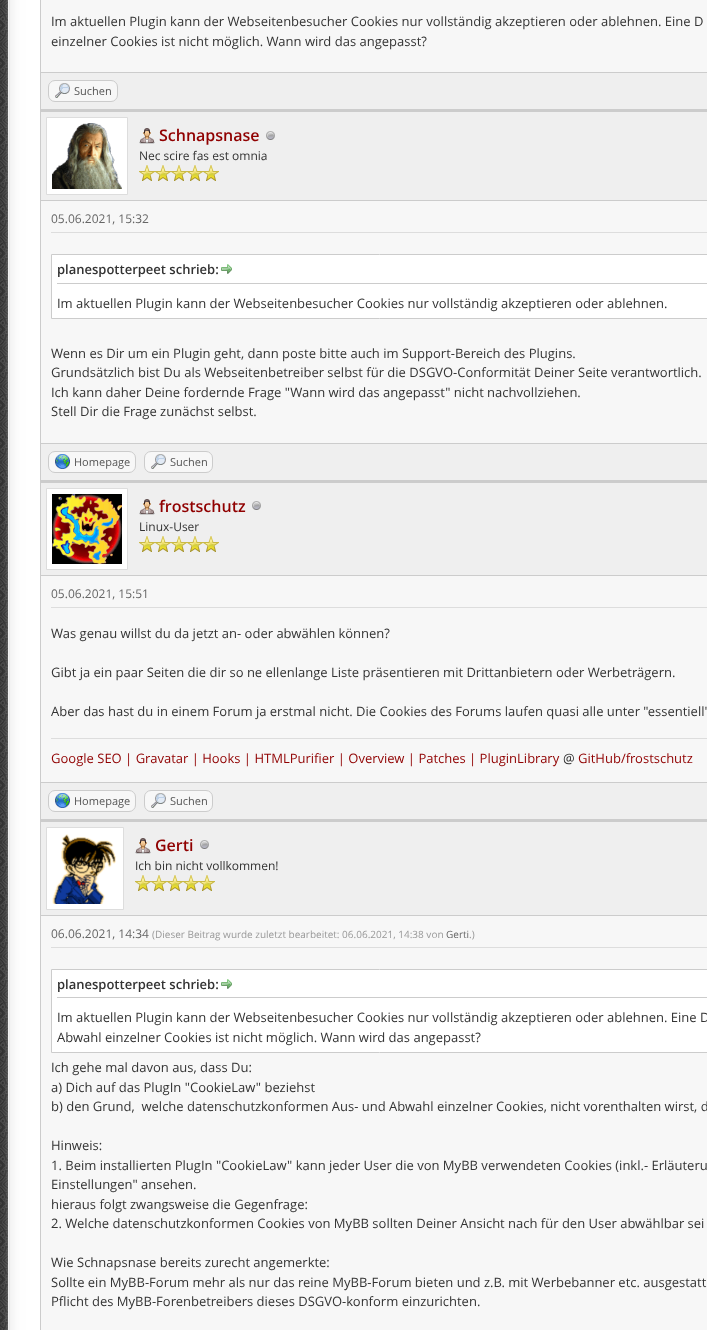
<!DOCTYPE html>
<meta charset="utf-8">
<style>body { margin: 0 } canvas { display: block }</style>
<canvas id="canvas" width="707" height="1330"></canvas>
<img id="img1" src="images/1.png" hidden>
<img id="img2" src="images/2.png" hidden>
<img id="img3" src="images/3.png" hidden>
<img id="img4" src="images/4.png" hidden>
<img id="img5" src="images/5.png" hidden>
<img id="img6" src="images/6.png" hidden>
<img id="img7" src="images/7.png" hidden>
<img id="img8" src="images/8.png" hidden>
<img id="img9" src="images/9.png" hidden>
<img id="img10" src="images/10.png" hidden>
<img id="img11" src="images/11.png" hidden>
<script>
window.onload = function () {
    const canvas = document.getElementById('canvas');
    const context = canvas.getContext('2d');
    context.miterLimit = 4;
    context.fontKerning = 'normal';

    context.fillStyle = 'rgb(255, 255, 255)';
    context.fillRect(0, 0, 707, 1330);
    context.drawImage(document.getElementById('img1'), 0, 0, 8, 1330);
    context.drawImage(document.getElementById('img2'), 3, 0, 37, 1330);
    context.fillStyle = 'rgb(204, 204, 204)';
    context.fillRect(40, 0, 1, 1330);
    context.fillStyle = 'rgb(247, 247, 247)';
    context.fillRect(41, 0, 666, 72);
    context.fillStyle = 'rgb(239, 239, 239)';
    context.fillRect(41, 73, 666, 36);
    context.fillStyle = 'rgb(204, 204, 204)';
    context.fillRect(41, 72, 666, 1);
    context.fillRect(41, 109, 666, 3);
    context.fillStyle = 'rgb(247, 247, 247)';
    context.beginPath();
    context.roundRect(48.5, 80.5, 69, 21, 6.5);
    context.fill();
    context.strokeStyle = 'rgb(204, 204, 204)';
    context.stroke();
    context.drawImage(document.getElementById('img3'), 55, 83, 15, 15);
    context.fillRect(41, 201, 666, 242);
    context.fillStyle = 'rgb(239, 239, 239)';
    context.fillRect(41, 112, 666, 88);
    context.fillStyle = 'rgb(204, 204, 204)';
    context.fillRect(41, 200, 666, 1);
    context.fillStyle = 'rgb(255, 255, 255)';
    context.beginPath();
    context.rect(46.5, 117.5, 81, 77);
    context.fill();
    context.strokeStyle = 'rgb(221, 221, 221)';
    context.stroke();
    context.drawImage(document.getElementById('img4'), 52, 123, 70, 66);
    context.drawImage(document.getElementById('img5'), 139, 128, 16, 16);
    context.drawImage(document.getElementById('img6'), 266, 131, 9, 9);
    context.drawImage(document.getElementById('img7'), 139, 165, 16, 16);
    context.drawImage(document.getElementById('img7'), 155, 165, 16, 16);
    context.drawImage(document.getElementById('img7'), 171, 165, 16, 16);
    context.drawImage(document.getElementById('img7'), 187, 165, 16, 16);
    context.drawImage(document.getElementById('img7'), 203, 165, 16, 16);
    context.fillStyle = 'rgb(221, 221, 221)';
    context.fillRect(51, 232, 656, 1);
    context.fillStyle = 'rgb(255, 255, 255)';
    context.beginPath();
    context.rect(51.5, 254.5, 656, 64);
    context.fill();
    context.strokeStyle = 'rgb(204, 204, 204)';
    context.stroke();
    context.fillStyle = 'rgb(204, 204, 204)';
    context.fillRect(57, 283, 650, 1);
    context.drawImage(document.getElementById('img8'), 221, 264, 11, 10);
    context.fillStyle = 'rgb(239, 239, 239)';
    context.fillRect(41, 444, 666, 36);
    context.fillStyle = 'rgb(204, 204, 204)';
    context.fillRect(41, 443, 666, 1);
    context.fillRect(41, 480, 666, 3);
    context.fillStyle = 'rgb(247, 247, 247)';
    context.beginPath();
    context.roundRect(48.5, 451.5, 87, 21, 6.5);
    context.fill();
    context.stroke();
    context.drawImage(document.getElementById('img9'), 55, 454, 15, 15);
    context.beginPath();
    context.roundRect(144.5, 451.5, 68, 21, 6.5);
    context.fill();
    context.stroke();
    context.drawImage(document.getElementById('img3'), 151, 454, 15, 15);
    context.fillRect(41, 576, 666, 206);
    context.fillStyle = 'rgb(239, 239, 239)';
    context.fillRect(41, 483, 666, 92);
    context.fillStyle = 'rgb(204, 204, 204)';
    context.fillRect(41, 575, 666, 1);
    context.fillStyle = 'rgb(255, 255, 255)';
    context.beginPath();
    context.rect(46.5, 488.5, 81, 81);
    context.fill();
    context.strokeStyle = 'rgb(221, 221, 221)';
    context.stroke();
    context.drawImage(document.getElementById('img10'), 52, 494, 70, 70);
    context.drawImage(document.getElementById('img5'), 139, 499, 16, 16);
    context.drawImage(document.getElementById('img6'), 252, 501, 9, 9);
    context.drawImage(document.getElementById('img7'), 139, 536, 16, 16);
    context.drawImage(document.getElementById('img7'), 155, 536, 16, 16);
    context.drawImage(document.getElementById('img7'), 171, 536, 16, 16);
    context.drawImage(document.getElementById('img7'), 187, 536, 16, 16);
    context.drawImage(document.getElementById('img7'), 203, 536, 16, 16);
    context.fillStyle = 'rgb(221, 221, 221)';
    context.fillRect(51, 607, 656, 1);
    context.fillRect(51, 738, 656, 1);
    context.fillStyle = 'rgb(239, 239, 239)';
    context.fillRect(41, 783, 666, 36);
    context.fillStyle = 'rgb(204, 204, 204)';
    context.fillRect(41, 782, 666, 1);
    context.fillRect(41, 819, 666, 3);
    context.fillStyle = 'rgb(247, 247, 247)';
    context.beginPath();
    context.roundRect(48.5, 790.5, 87, 21, 6.5);
    context.fill();
    context.strokeStyle = 'rgb(204, 204, 204)';
    context.stroke();
    context.drawImage(document.getElementById('img9'), 55, 793, 15, 15);
    context.beginPath();
    context.roundRect(144.5, 790.5, 68, 21, 6.5);
    context.fill();
    context.stroke();
    context.drawImage(document.getElementById('img3'), 151, 793, 15, 15);
    context.fillRect(41, 916, 666, 414);
    context.fillStyle = 'rgb(239, 239, 239)';
    context.fillRect(41, 822, 666, 93);
    context.fillStyle = 'rgb(204, 204, 204)';
    context.fillRect(41, 915, 666, 1);
    context.fillStyle = 'rgb(255, 255, 255)';
    context.beginPath();
    context.rect(46.5, 827.5, 77, 82);
    context.fill();
    context.strokeStyle = 'rgb(221, 221, 221)';
    context.stroke();
    context.drawImage(document.getElementById('img11'), 52, 834, 64, 70);
    context.drawImage(document.getElementById('img5'), 135, 838, 16, 16);
    context.drawImage(document.getElementById('img6'), 200, 840, 9, 9);
    context.drawImage(document.getElementById('img7'), 135, 875, 16, 16);
    context.drawImage(document.getElementById('img7'), 151, 875, 16, 16);
    context.drawImage(document.getElementById('img7'), 167, 875, 16, 16);
    context.drawImage(document.getElementById('img7'), 183, 875, 16, 16);
    context.drawImage(document.getElementById('img7'), 199, 875, 16, 16);
    context.fillStyle = 'rgb(221, 221, 221)';
    context.fillRect(51, 947, 656, 1);
    context.fillStyle = 'rgb(255, 255, 255)';
    context.beginPath();
    context.rect(51.5, 969.5, 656, 83);
    context.fill();
    context.strokeStyle = 'rgb(204, 204, 204)';
    context.stroke();
    context.fillStyle = 'rgb(204, 204, 204)';
    context.fillRect(57, 997, 650, 1);
    context.drawImage(document.getElementById('img8'), 221, 979, 11, 10);
    context.font = '13px Open Sans';
    context.fillStyle = 'rgb(51, 51, 51)';
    context.fillText('Im aktuellen Plugin kann der Webseitenbesucher Cookies nur vollständig akzeptieren oder ablehnen. Eine D', 51, 26);
    context.fillText('einzelner Cookies ist nicht möglich. Wann wird das angepasst?', 51, 46);
    context.font = '11px Open Sans';
    context.fillStyle = 'rgb(85, 85, 85)';
    context.fillText('Suchen', 74, 95);
    context.font = '600 16px Open Sans';
    context.fillStyle = 'rgb(144, 0, 0)';
    context.fillText('Schnapsnase', 159, 141);
    context.font = '12px Open Sans';
    context.fillStyle = 'rgb(51, 51, 51)';
    context.fillText('Nec scire fas est omnia', 139, 160);
    context.fillStyle = 'rgb(102, 102, 102)';
    context.fillText('05.06.2021, 15:32', 51, 223);
    context.font = '600 13px Open Sans';
    context.fillStyle = 'rgb(51, 51, 51)';
    context.fillText('planespotterpeet schrieb:', 57, 274);
    context.font = '13px Open Sans';
    context.fillText('Im aktuellen Plugin kann der Webseitenbesucher Cookies nur vollständig akzeptieren oder ablehnen.', 57, 308);
    context.fillText('Wenn es Dir um ein Plugin geht, dann poste bitte auch im Support-Bereich des Plugins.', 51, 358);
    context.fillText('Grundsätzlich bist Du als Webseitenbetreiber selbst für die DSGVO-Conformität Deiner Seite verantwortlich.', 51, 377);
    context.fillText('Ich kann daher Deine fordernde Frage "Wann wird das angepasst" nicht nachvollziehen.', 51, 397);
    context.fillText('Stell Dir die Frage zunächst selbst.', 51, 416);
    context.font = '11px Open Sans';
    context.fillStyle = 'rgb(85, 85, 85)';
    context.fillText('Homepage', 74, 466);
    context.fillText('Suchen', 170, 466);
    context.font = '600 16px Open Sans';
    context.fillStyle = 'rgb(144, 0, 0)';
    context.fillText('frostschutz', 159, 512);
    context.font = '12px Open Sans';
    context.fillStyle = 'rgb(51, 51, 51)';
    context.fillText('Linux-User', 139, 531);
    context.fillStyle = 'rgb(102, 102, 102)';
    context.fillText('05.06.2021, 15:51', 51, 598);
    context.font = '13px Open Sans';
    context.fillStyle = 'rgb(51, 51, 51)';
    context.fillText('Was genau willst du da jetzt an- oder abwählen können?', 51, 638);
    context.fillText('Gibt ja ein paar Seiten die dir so ne ellenlange Liste präsentieren mit Drittanbietern oder Werbeträgern.', 51, 677);
    context.fillText('Aber das hast du in einem Forum ja erstmal nicht. Die Cookies des Forums laufen quasi alle unter "essentiell"', 51, 716);
    context.fillStyle = 'rgb(144, 0, 0)';
    context.fillText('Google SEO | Gravatar | Hooks | HTMLPurifier | Overview | Patches | PluginLibrary', 51, 763);
    context.fillStyle = 'rgb(51, 51, 51)';
    context.fillText('@', 563, 763);
    context.fillStyle = 'rgb(144, 0, 0)';
    context.fillText('GitHub/frostschutz', 578, 763);
    context.font = '11px Open Sans';
    context.fillStyle = 'rgb(85, 85, 85)';
    context.fillText('Homepage', 74, 805);
    context.fillText('Suchen', 170, 805);
    context.font = '600 16px Open Sans';
    context.fillStyle = 'rgb(144, 0, 0)';
    context.fillText('Gerti', 155, 851);
    context.font = '12px Open Sans';
    context.fillStyle = 'rgb(51, 51, 51)';
    context.fillText('Ich bin nicht vollkommen!', 135, 870);
    context.fillStyle = 'rgb(102, 102, 102)';
    context.fillText('06.06.2021, 14:34', 51, 938);
    context.font = '10px Open Sans';
    context.fillStyle = 'rgb(153, 153, 153)';
    context.fillText('(Dieser Beitrag wurde zuletzt bearbeitet: 06.06.2021, 14:38 von', 152, 938);
    context.fillStyle = 'rgb(102, 102, 102)';
    context.fillText('Gerti', 446, 938);
    context.fillStyle = 'rgb(153, 153, 153)';
    context.fillText('.)', 469, 938);
    context.font = '600 13px Open Sans';
    context.fillStyle = 'rgb(51, 51, 51)';
    context.fillText('planespotterpeet schrieb:', 57, 989);
    context.font = '13px Open Sans';
    context.fillText('Im aktuellen Plugin kann der Webseitenbesucher Cookies nur vollständig akzeptieren oder ablehnen. Eine D', 57, 1022);
    context.fillText('Abwahl einzelner Cookies ist nicht möglich. Wann wird das angepasst?', 57, 1042);
    context.fillText('Ich gehe mal davon aus, dass Du:', 51, 1072);
    context.fillText('a) Dich auf das PlugIn "CookieLaw" beziehst', 51, 1092);
    context.fillText('b) den Grund,  welche datenschutzkonformen Aus- und Abwahl einzelner Cookies, nicht vorenthalten wirst, d', 51, 1111);
    context.fillText('Hinweis:', 51, 1150);
    context.fillText('1. Beim installierten PlugIn "CookieLaw" kann jeder User die von MyBB verwendeten Cookies (inkl.- Erläuteru', 51, 1170);
    context.fillText('Einstellungen" ansehen.', 51, 1189);
    context.fillText('hieraus folgt zwangsweise die Gegenfrage:', 51, 1209);
    context.fillText('2. Welche datenschutzkonformen Cookies von MyBB sollten Deiner Ansicht nach für den User abwählbar sei', 51, 1228);
    context.fillText('Wie Schnapsnase bereits zurecht angemerkte:', 51, 1267);
    context.fillText('Sollte ein MyBB-Forum mehr als nur das reine MyBB-Forum bieten und z.B. mit Werbebanner etc. ausgestatt', 51, 1287);
    context.fillText('Pflicht des MyBB-Forenbetreibers dieses DSGVO-konform einzurichten.', 51, 1306);
};
</script>
